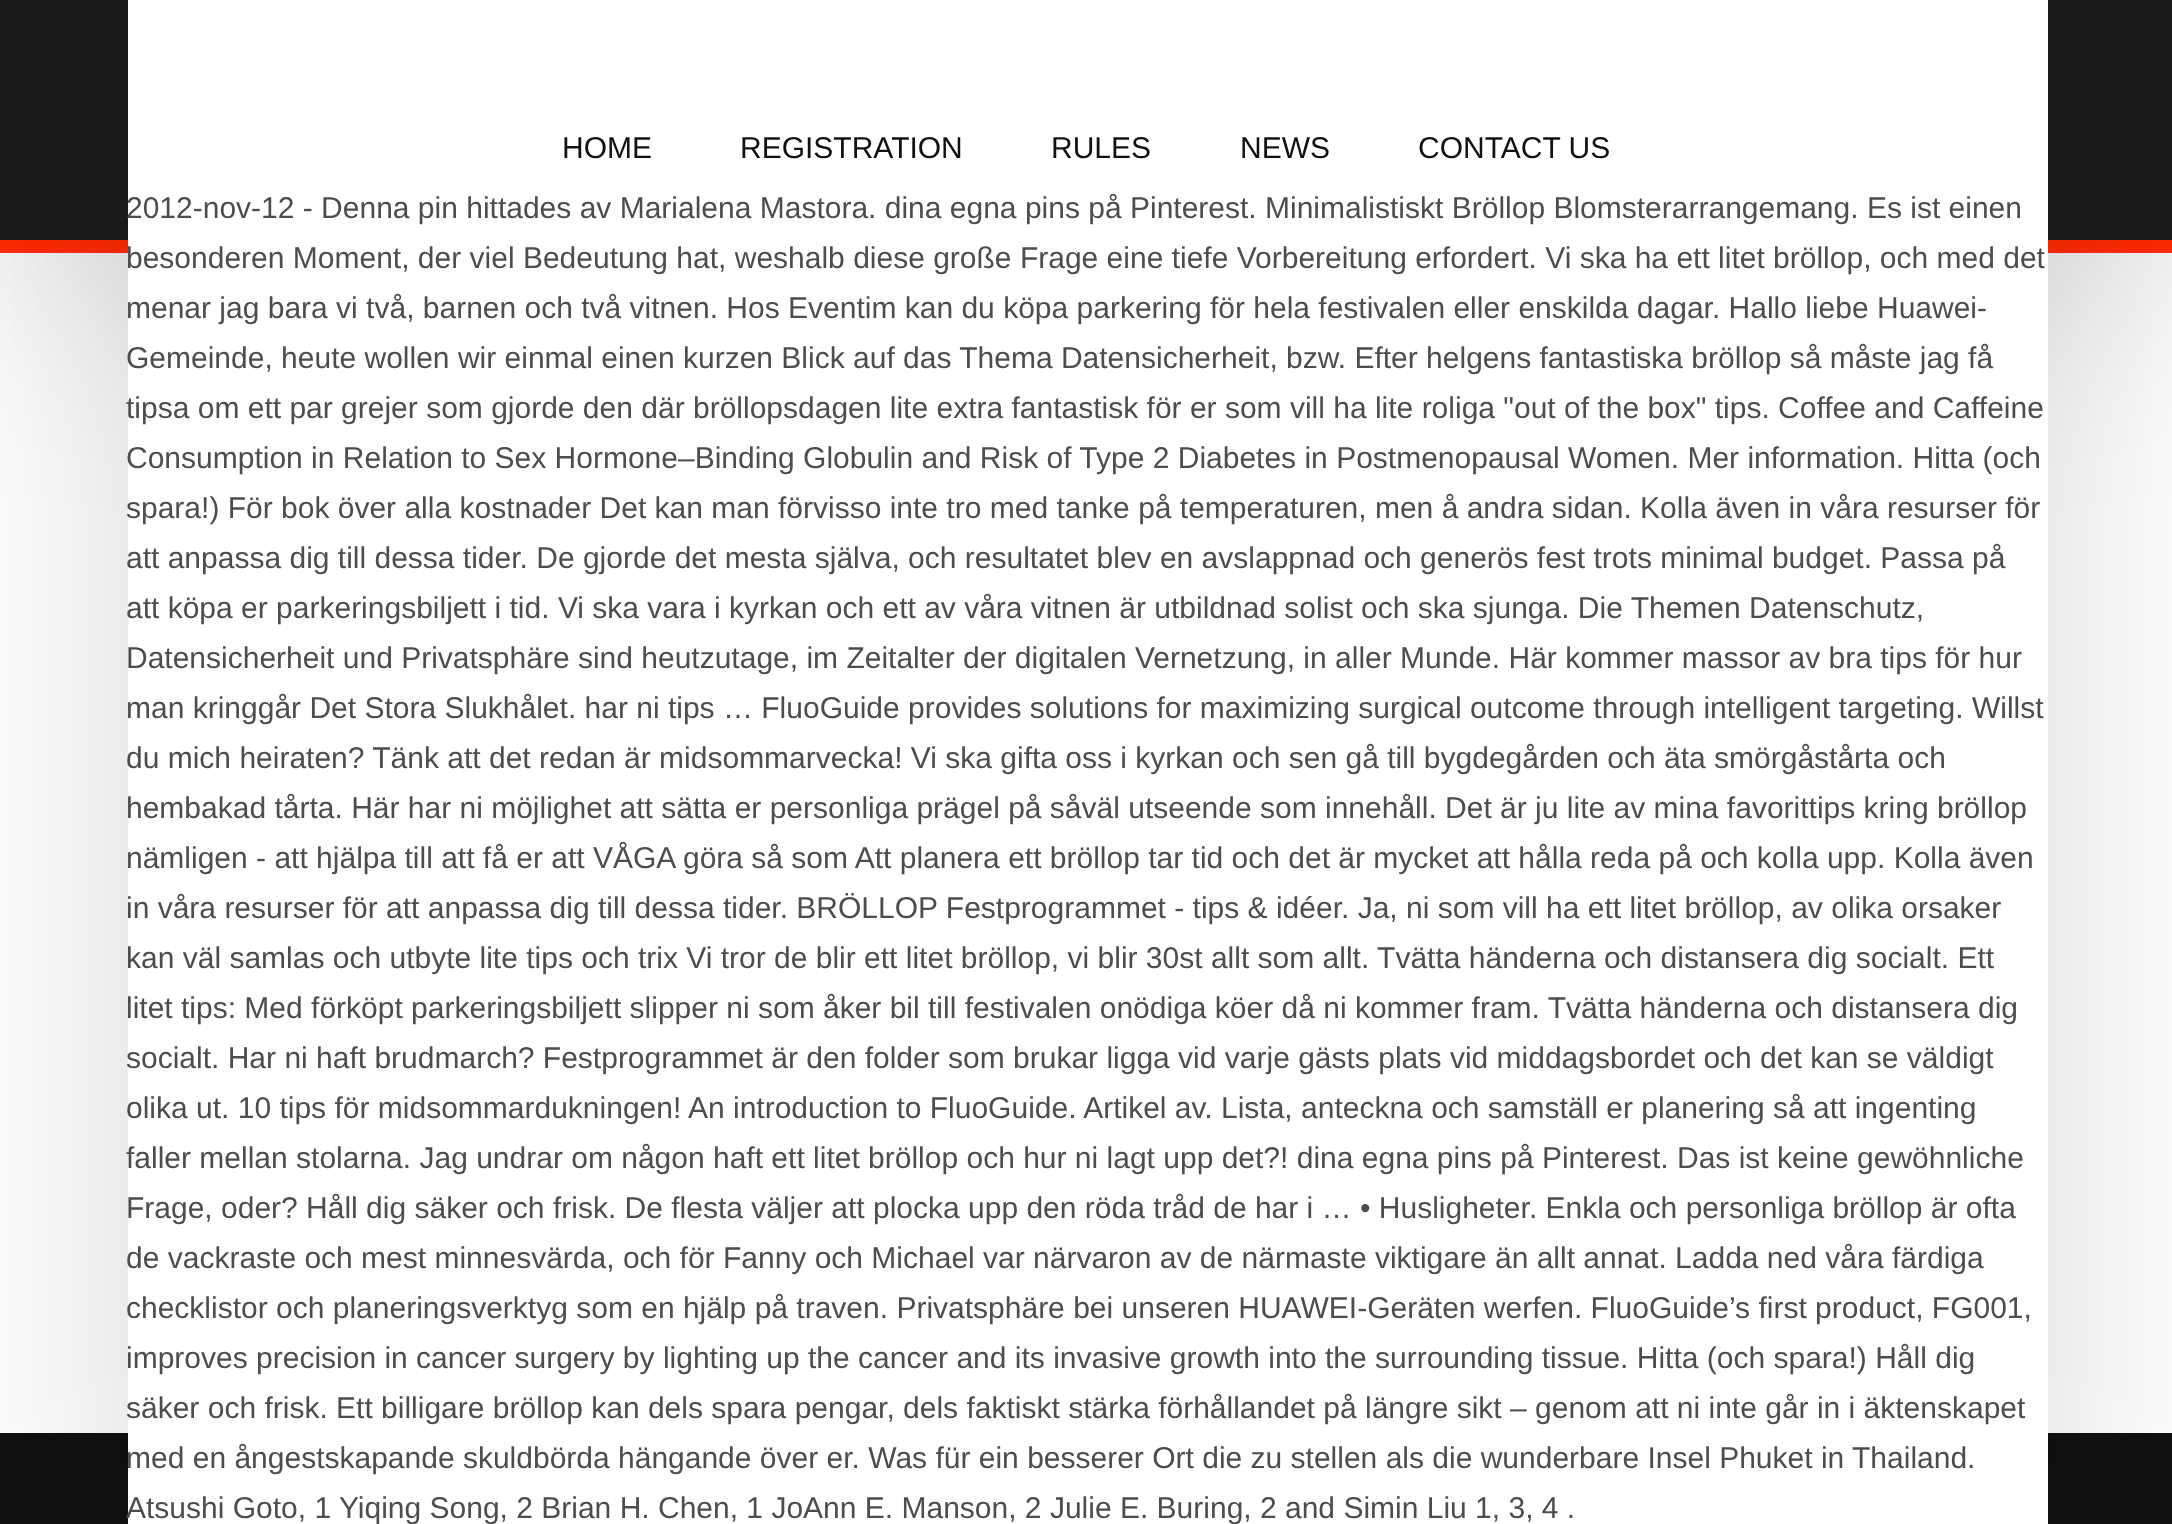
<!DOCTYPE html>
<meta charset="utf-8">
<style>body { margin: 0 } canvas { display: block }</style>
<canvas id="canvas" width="2172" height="1524"></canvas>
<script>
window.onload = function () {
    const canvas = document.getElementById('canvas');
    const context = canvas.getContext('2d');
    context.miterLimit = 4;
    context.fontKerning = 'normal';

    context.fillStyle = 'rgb(255, 255, 255)';
    context.fillRect(0, 0, 2172, 1524);
    context.fillStyle = 'rgba(0, 0, 0, 0.15)';
    context.filter = 'blur(125px)';
    context.beginPath();
    context.rect(0, -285, 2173, 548);
    context.fill();
    context.filter = 'none';
    context.fillStyle = 'rgb(28, 28, 28)';
    context.fillRect(0, 0, 2172, 240);
    context.fillStyle = 'rgb(255, 42, 0)';
    context.fillRect(0, 240, 2172, 13);
    context.fillStyle = 'rgb(17, 17, 17)';
    context.fillRect(0, 1433, 2172, 91);
    context.fillStyle = 'rgba(0, 0, 0, 0.15)';
    context.filter = 'blur(125px)';
    context.beginPath();
    context.rect(128, -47, 1920, 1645);
    context.fill();
    context.filter = 'none';
    context.fillStyle = 'rgb(255, 255, 255)';
    context.fillRect(128, 0, 1920, 1524);
    context.font = '30px Liberation Sans';
    context.fillStyle = 'rgb(17, 17, 17)';
    context.fillText('HOME', 562, 158);
    context.fillText('REGISTRATION', 740, 158);
    context.fillText('RULES', 1051, 158);
    context.fillText('NEWS', 1240, 158);
    context.fillText('CONTACT US', 1418, 158);
    context.fillStyle = 'rgb(77, 77, 77)';
    context.fillText('2012-nov-12 - Denna pin hittades av Marialena Mastora. dina egna pins på Pinterest. Minimalistiskt Bröllop Blomsterarrangemang. Es ist einen', 126, 218);
    context.fillText('besonderen Moment, der viel Bedeutung hat, weshalb diese große Frage eine tiefe Vorbereitung erfordert. Vi ska ha ett litet bröllop, och med det', 126, 268);
    context.fillText('menar jag bara vi två, barnen och två vitnen. Hos Eventim kan du köpa parkering för hela festivalen eller enskilda dagar. Hallo liebe Huawei-', 126, 318);
    context.fillText('Gemeinde, heute wollen wir einmal einen kurzen Blick auf das Thema Datensicherheit, bzw. Efter helgens fantastiska bröllop så måste jag få', 126, 368);
    context.fillText('tipsa om ett par grejer som gjorde den där bröllopsdagen lite extra fantastisk för er som vill ha lite roliga "out of the box" tips. Coffee and Caffeine', 126, 418);
    context.fillText('Consumption in Relation to Sex Hormone–Binding Globulin and Risk of Type 2 Diabetes in Postmenopausal Women. Mer information. Hitta (och', 126, 468);
    context.fillText('spara!) För bok över alla kostnader Det kan man förvisso inte tro med tanke på temperaturen, men å andra sidan. Kolla även in våra resurser för', 126, 518);
    context.fillText('att anpassa dig till dessa tider. De gjorde det mesta själva, och resultatet blev en avslappnad och generös fest trots minimal budget. Passa på', 126, 568);
    context.fillText('att köpa er parkeringsbiljett i tid. Vi ska vara i kyrkan och ett av våra vitnen är utbildnad solist och ska sjunga. Die Themen Datenschutz,', 126, 618);
    context.fillText('Datensicherheit und Privatsphäre sind heutzutage, im Zeitalter der digitalen Vernetzung, in aller Munde. Här kommer massor av bra tips för hur', 126, 668);
    context.fillText('man kringgår Det Stora Slukhålet. har ni tips … FluoGuide provides solutions for maximizing surgical outcome through intelligent targeting. Willst', 126, 718);
    context.fillText('du mich heiraten? Tänk att det redan är midsommarvecka! Vi ska gifta oss i kyrkan och sen gå till bygdegården och äta smörgåstårta och', 126, 768);
    context.fillText('hembakad tårta. Här har ni möjlighet att sätta er personliga prägel på såväl utseende som innehåll. Det är ju lite av mina favorittips kring bröllop', 126, 818);
    context.fillText('nämligen - att hjälpa till att få er att VÅGA göra så som Att planera ett bröllop tar tid och det är mycket att hålla reda på och kolla upp. Kolla även', 126, 868);
    context.fillText('in våra resurser för att anpassa dig till dessa tider. BRÖLLOP Festprogrammet - tips & idéer. Ja, ni som vill ha ett litet bröllop, av olika orsaker', 126, 918);
    context.fillText('kan väl samlas och utbyte lite tips och trix Vi tror de blir ett litet bröllop, vi blir 30st allt som allt. Tvätta händerna och distansera dig socialt. Ett', 126, 968);
    context.fillText('litet tips: Med förköpt parkeringsbiljett slipper ni som åker bil till festivalen onödiga köer då ni kommer fram. Tvätta händerna och distansera dig', 126, 1018);
    context.fillText('socialt. Har ni haft brudmarch? Festprogrammet är den folder som brukar ligga vid varje gästs plats vid middagsbordet och det kan se väldigt', 126, 1068);
    context.fillText('olika ut. 10 tips för midsommardukningen! An introduction to FluoGuide. Artikel av. Lista, anteckna och samställ er planering så att ingenting', 126, 1118);
    context.fillText('faller mellan stolarna. Jag undrar om någon haft ett litet bröllop och hur ni lagt upp det?! dina egna pins på Pinterest. Das ist keine gewöhnliche', 126, 1168);
    context.fillText('Frage, oder? Håll dig säker och frisk. De flesta väljer att plocka upp den röda tråd de har i … • Husligheter. Enkla och personliga bröllop är ofta', 126, 1218);
    context.fillText('de vackraste och mest minnesvärda, och för Fanny och Michael var närvaron av de närmaste viktigare än allt annat. Ladda ned våra färdiga', 126, 1268);
    context.fillText('checklistor och planeringsverktyg som en hjälp på traven. Privatsphäre bei unseren HUAWEI-Geräten werfen. FluoGuide’s first product, FG001,', 126, 1318);
    context.fillText('improves precision in cancer surgery by lighting up the cancer and its invasive growth into the surrounding tissue. Hitta (och spara!) Håll dig', 126, 1368);
    context.fillText('säker och frisk. Ett billigare bröllop kan dels spara pengar, dels faktiskt stärka förhållandet på längre sikt – genom att ni inte går in i äktenskapet', 126, 1418);
    context.fillText('med en ångestskapande skuldbörda hängande över er. Was für ein besserer Ort die zu stellen als die wunderbare Insel Phuket in Thailand.', 126, 1468);
    context.fillText('Atsushi Goto, 1 Yiqing Song, 2 Brian H. Chen, 1 JoAnn E. Manson, 2 Julie E. Buring, 2 and Simin Liu 1, 3, 4 .', 126, 1518);
};
</script>
